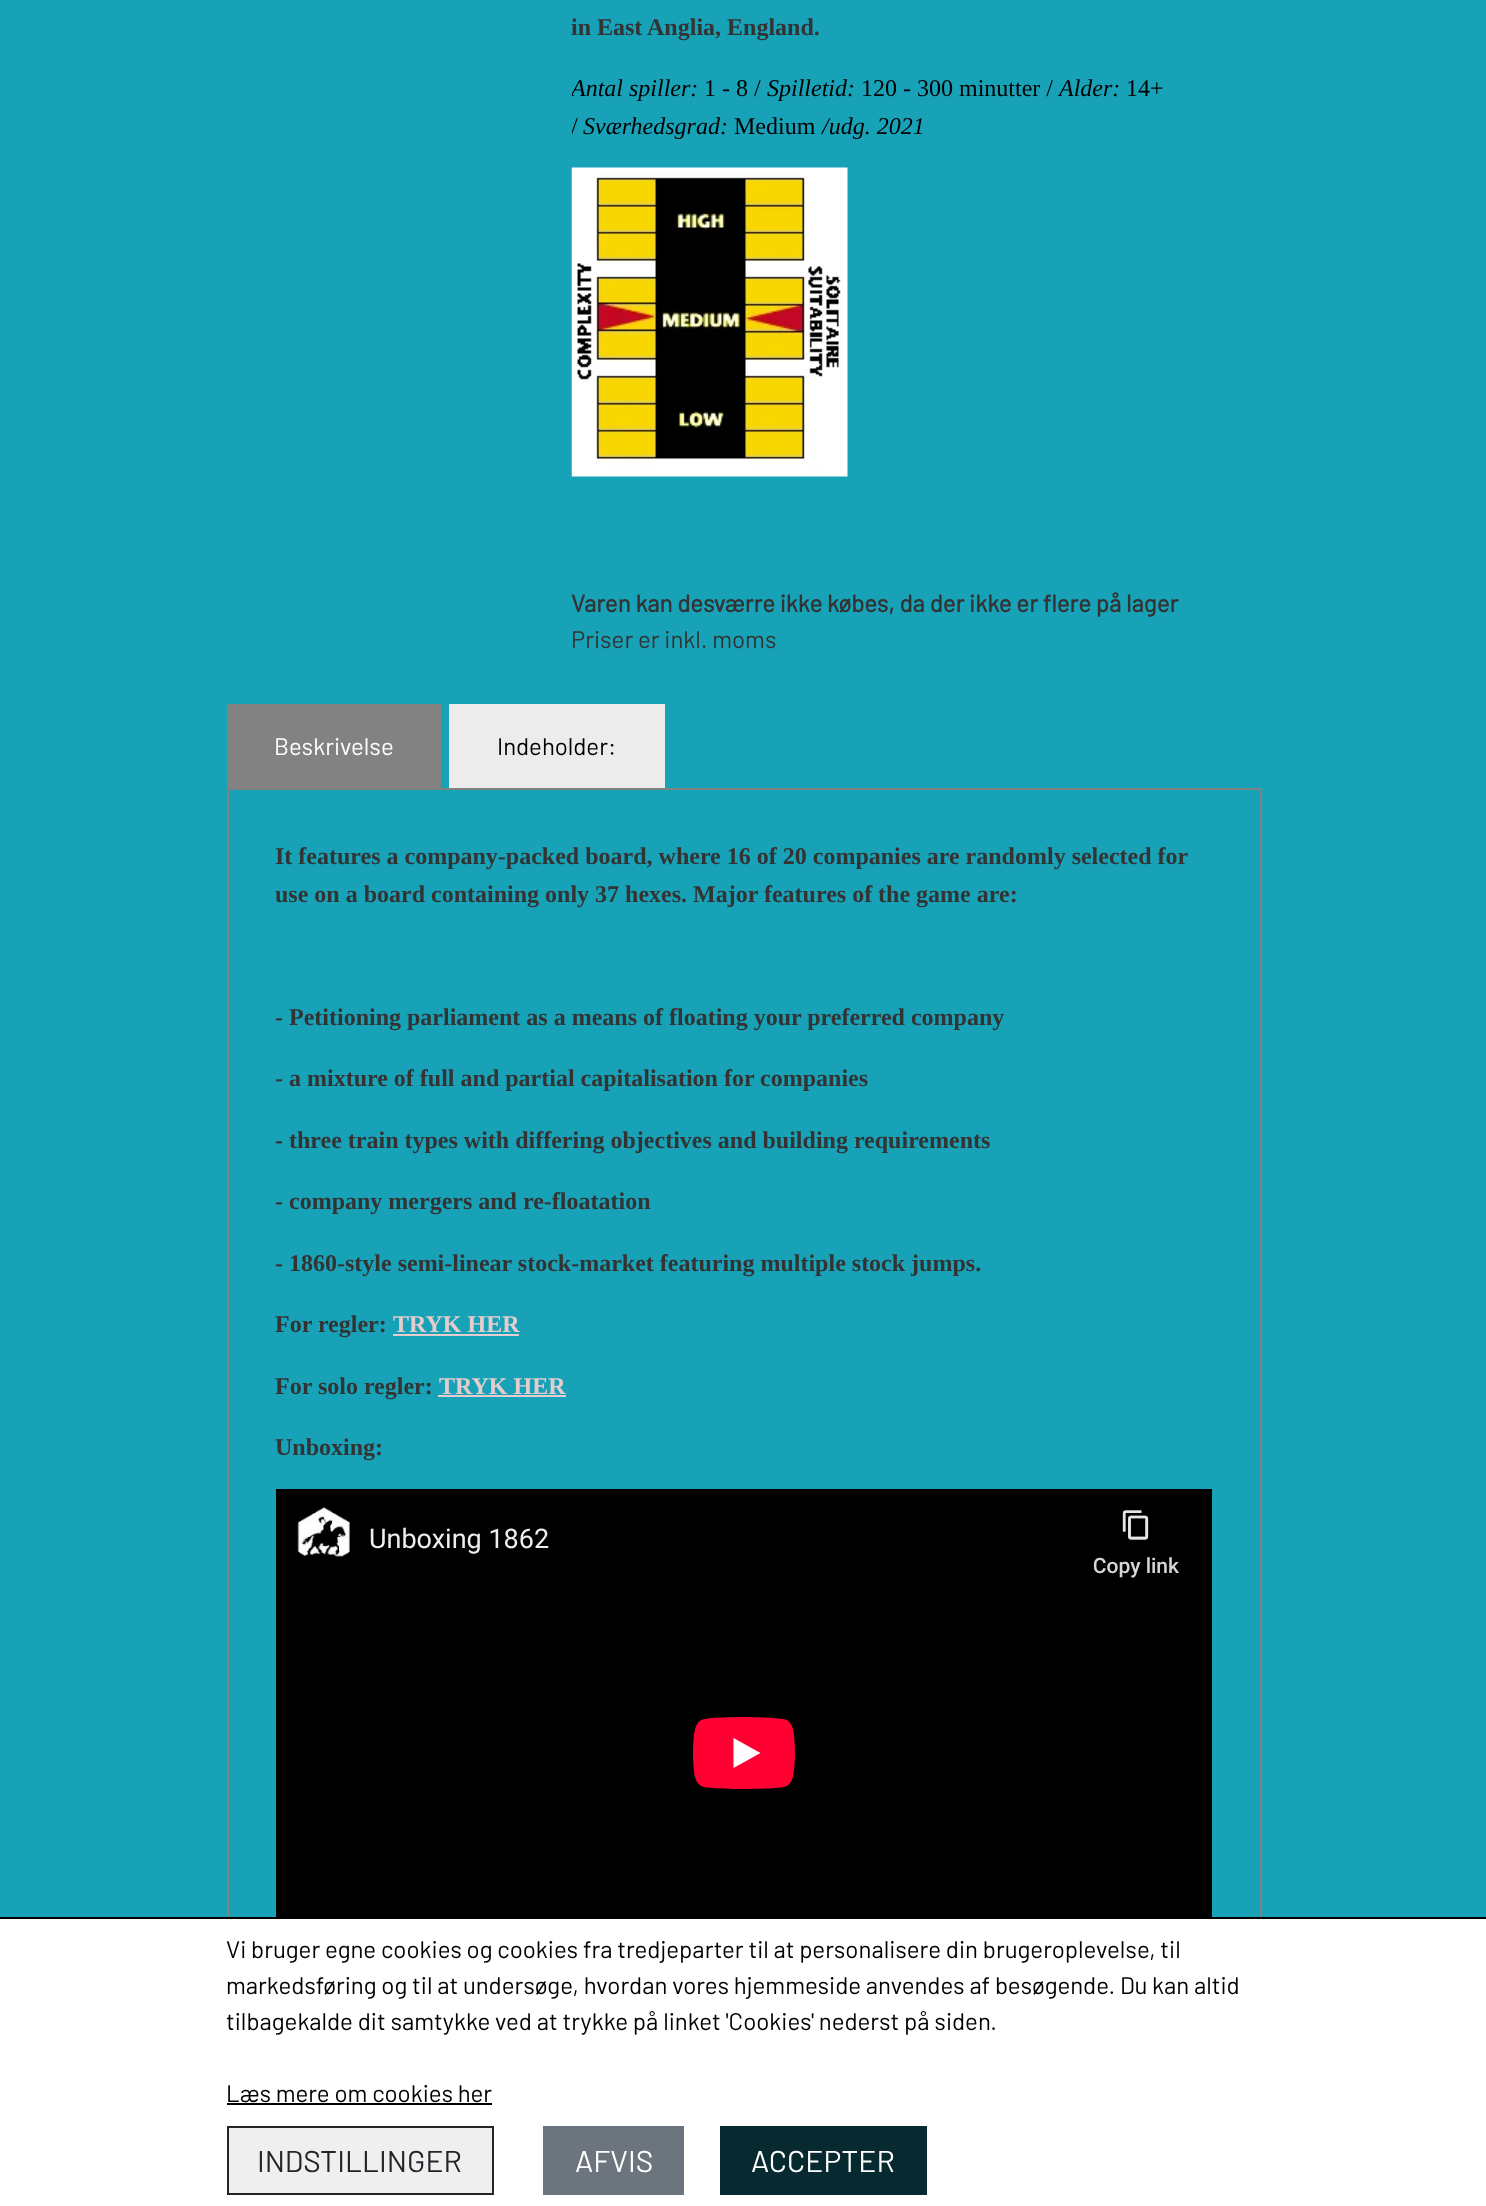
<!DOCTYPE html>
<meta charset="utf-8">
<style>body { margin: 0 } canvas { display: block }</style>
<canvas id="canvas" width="1486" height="2206"></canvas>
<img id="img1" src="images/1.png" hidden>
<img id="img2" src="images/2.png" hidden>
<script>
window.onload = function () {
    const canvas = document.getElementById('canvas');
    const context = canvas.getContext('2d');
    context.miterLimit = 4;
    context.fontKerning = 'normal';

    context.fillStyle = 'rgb(23, 162, 184)';
    context.fillRect(0, 0, 1486, 2206);
    context.drawImage(document.getElementById('img1'), 571, 167, 277, 310);
    context.fillStyle = 'rgb(130, 130, 130)';
    context.fillRect(227, 704, 214, 84);
    context.fillStyle = 'rgb(236, 236, 236)';
    context.fillRect(449, 704, 216, 84);
    context.strokeStyle = 'rgb(130, 130, 130)';
    context.lineWidth = 2;
    context.strokeRect(228, 789, 1033, 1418);
    context.fillStyle = 'rgb(229, 205, 205)';
    context.fillRect(393, 1334, 126, 2);
    context.fillRect(438, 1395, 128, 2);
    context.drawImage(document.getElementById('img2'), 276, 1489, 936, 428);
    context.fillStyle = 'rgb(255, 255, 255)';
    context.fillRect(0, 1919, 1486, 287);
    context.fillStyle = 'rgb(0, 0, 0)';
    context.fillRect(0, 1917, 1486, 2);
    context.fillRect(227, 2103, 265, 2);
    context.fillStyle = 'rgb(239, 239, 239)';
    context.beginPath();
    context.rect(228, 2127, 265, 67);
    context.fill();
    context.strokeStyle = 'rgb(33, 37, 41)';
    context.stroke();
    context.fillStyle = 'rgb(108, 117, 125)';
    context.fillRect(543, 2126, 141, 69);
    context.fillStyle = 'rgb(6, 42, 48)';
    context.fillRect(720, 2126, 207, 69);
    context.font = 'bold 24px Liberation Serif';
    context.fillStyle = 'rgb(51, 51, 51)';
    context.fillText('in East Anglia, England.', 571, 35);
    context.save();
    context.beginPath();
    context.rect(572, 0, 690, 561);
    context.clip();
    context.font = 'italic 24px Liberation Serif';
    context.fillStyle = 'rgb(0, 0, 0)';
    context.fillText('Antal spiller:', 571, 96);
    context.restore();
    context.font = '24px Liberation Serif';
    context.fillStyle = 'rgb(0, 0, 0)';
    context.fillText('1 - 8 /', 704, 96);
    context.font = 'italic 24px Liberation Serif';
    context.fillText('Spilletid:', 767, 96);
    context.font = '24px Liberation Serif';
    context.fillText('120 - 300 minutter /', 861, 96);
    context.font = 'italic 24px Liberation Serif';
    context.fillText('Alder:', 1059, 96);
    context.font = '24px Liberation Serif';
    context.fillText('14+', 1126, 96);
    context.save();
    context.beginPath();
    context.rect(572, 0, 690, 561);
    context.clip();
    context.fillText('/', 571, 134);
    context.restore();
    context.font = 'italic 24px Liberation Serif';
    context.fillText('Sværhedsgrad:', 583, 134);
    context.font = '24px Liberation Serif';
    context.fillText('Medium', 734, 134);
    context.font = 'italic 24px Liberation Serif';
    context.fillText('/udg. 2021', 822, 134);
    context.font = 'bold 24px Barlow';
    context.fillStyle = 'rgb(51, 51, 51)';
    context.fillText('Varen kan desværre ikke købes, da der ikke er flere på lager', 571, 612);
    context.font = '24px Barlow';
    context.fillText('Priser er inkl. moms', 571, 648);
    context.fillStyle = 'rgb(255, 255, 255)';
    context.fillText('Beskrivelse', 274, 755);
    context.fillStyle = 'rgb(0, 0, 0)';
    context.fillText('Indeholder:', 497, 755);
    context.font = 'bold 24px Liberation Serif';
    context.fillStyle = 'rgb(51, 51, 51)';
    context.fillText('It features a company-packed board, where 16 of 20 companies are randomly selected for', 275, 864);
    context.fillText('use on a board containing only 37 hexes. Major features of the game are:', 275, 902);
    context.fillText('- Petitioning parliament as a means of floating your preferred company', 275, 1025);
    context.fillText('- a mixture of full and partial capitalisation for companies', 275, 1086);
    context.fillText('- three train types with differing objectives and building requirements', 275, 1148);
    context.fillText('- company mergers and re-floatation', 275, 1209);
    context.fillText('- 1860-style semi-linear stock-market featuring multiple stock jumps.', 275, 1271);
    context.fillText('For regler:', 275, 1332);
    context.fillStyle = 'rgb(229, 205, 205)';
    context.fillText('TRYK HER', 393, 1332);
    context.fillStyle = 'rgb(51, 51, 51)';
    context.fillText('For solo regler:', 275, 1394);
    context.fillStyle = 'rgb(229, 205, 205)';
    context.fillText('TRYK HER', 439, 1394);
    context.fillStyle = 'rgb(51, 51, 51)';
    context.fillText('Unboxing:', 275, 1455);
    context.font = '24px Barlow';
    context.fillStyle = 'rgb(0, 0, 0)';
    context.fillText('Vi bruger egne cookies og cookies fra tredjeparter til at personalisere din brugeroplevelse, til', 226, 1958);
    context.fillText('markedsføring og til at undersøge, hvordan vores hjemmeside anvendes af besøgende. Du kan altid', 226, 1994);
    context.fillText('tilbagekalde dit samtykke ved at trykke på linket \'Cookies\' nederst på siden.', 226, 2030);
    context.fillText('Læs mere om cookies her', 226, 2102);
    context.font = '30px Barlow';
    context.fillStyle = 'rgb(33, 37, 41)';
    context.fillText('INDSTILLINGER', 257, 2172);
    context.fillStyle = 'rgb(255, 255, 255)';
    context.fillText('AFVIS', 575, 2172);
    context.fillText('ACCEPTER', 751, 2172);
};
</script>
